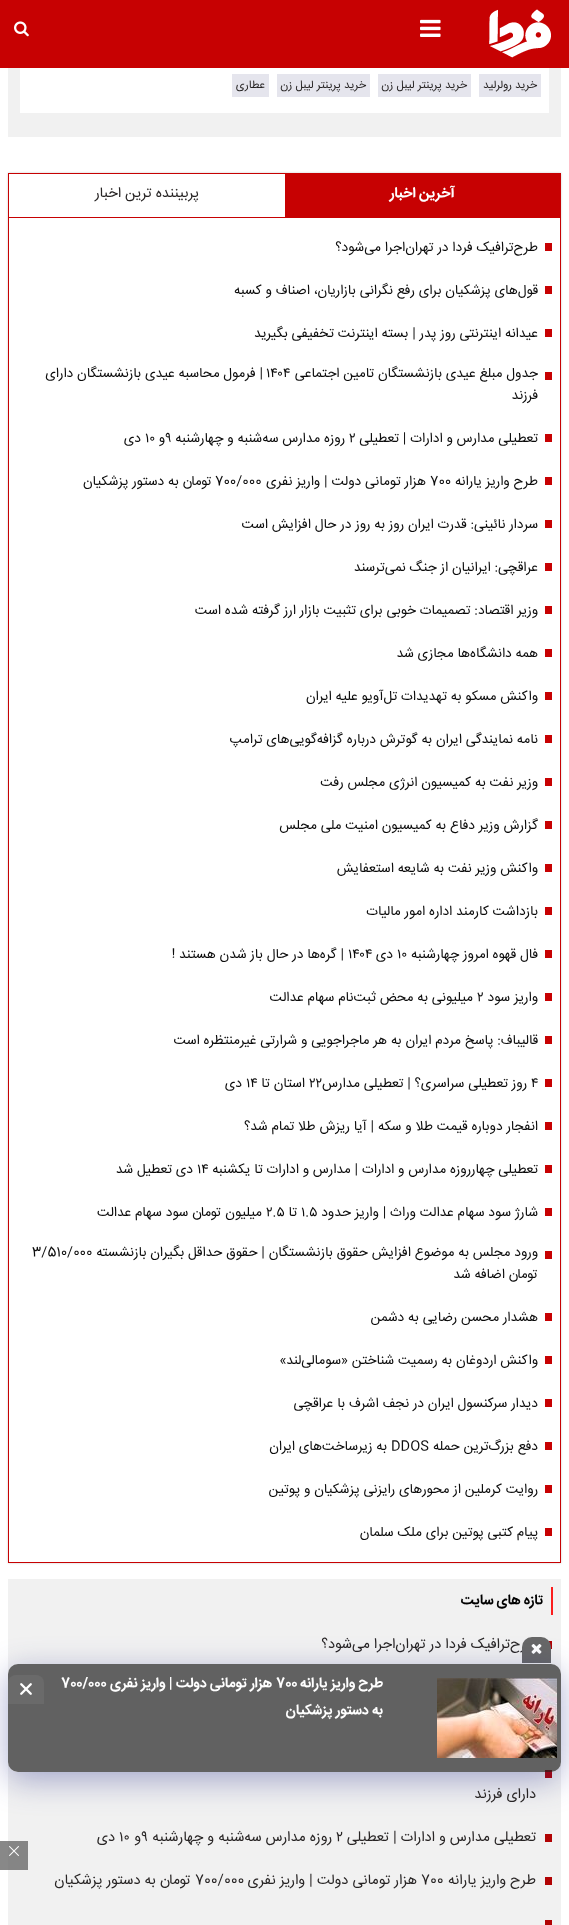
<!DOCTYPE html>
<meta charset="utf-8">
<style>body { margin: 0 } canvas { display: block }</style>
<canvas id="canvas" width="569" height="1925"></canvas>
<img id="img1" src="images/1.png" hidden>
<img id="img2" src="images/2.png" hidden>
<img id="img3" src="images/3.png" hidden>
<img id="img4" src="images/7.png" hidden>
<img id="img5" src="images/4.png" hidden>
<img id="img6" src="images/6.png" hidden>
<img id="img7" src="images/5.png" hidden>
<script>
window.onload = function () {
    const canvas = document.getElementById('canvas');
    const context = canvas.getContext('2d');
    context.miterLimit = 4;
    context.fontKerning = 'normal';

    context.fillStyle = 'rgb(255, 255, 255)';
    context.fillRect(0, 0, 569, 1925);
    context.fillStyle = 'rgb(136, 136, 136)';
    context.fillRect(0, 1841, 8, 29);
    context.fillStyle = 'rgb(199, 1, 2)';
    context.fillRect(0, 0, 569, 68);
    context.drawImage(document.getElementById('img1'), 489, 9, 62, 49);
    context.drawImage(document.getElementById('img2'), 420, 19, 21, 18);
    context.drawImage(document.getElementById('img3'), 14, 21, 15, 16);
    context.fillStyle = 'rgb(241, 241, 241)';
    context.fillRect(8, 68, 553, 69);
    context.fillStyle = 'rgb(255, 255, 255)';
    context.fillRect(20, 68, 529, 45);
    context.fillStyle = 'rgb(229, 229, 237)';
    context.fillRect(479, 74, 62, 23);
    context.fillRect(378, 74, 93, 23);
    context.fillRect(277, 74, 93, 23);
    context.fillRect(232, 74, 37, 23);
    context.save();
    context.beginPath();
    context.moveTo(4, 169);
    context.lineTo(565, 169);
    context.lineTo(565, 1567);
    context.lineTo(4, 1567);
    context.closePath();
    context.moveTo(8, 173);
    context.lineTo(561, 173);
    context.lineTo(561, 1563);
    context.lineTo(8, 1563);
    context.closePath();
    context.clip('evenodd');
    context.fillStyle = 'rgba(0, 0, 0, 0.2)';
    context.filter = 'blur(1px)';
    context.beginPath();
    context.rect(8, 173, 553, 1390);
    context.fill();
    context.filter = 'none';
    context.restore();
    context.strokeStyle = 'rgb(199, 1, 2)';
    context.strokeRect(8.5, 173.5, 552, 1389);
    context.fillStyle = 'rgb(199, 1, 2)';
    context.fillRect(9, 217, 551, 1);
    context.fillRect(285, 174, 275, 43);
    context.fillRect(545, 243, 7, 8);
    context.fillRect(545, 286, 7, 8);
    context.fillRect(545, 329, 7, 8);
    context.fillRect(545, 372, 7, 8);
    context.fillRect(545, 434, 7, 8);
    context.fillRect(545, 477, 7, 8);
    context.fillRect(545, 520, 7, 8);
    context.fillRect(545, 563, 7, 8);
    context.fillRect(545, 606, 7, 8);
    context.fillRect(545, 649, 7, 8);
    context.fillRect(545, 692, 7, 8);
    context.fillRect(545, 735, 7, 8);
    context.fillRect(545, 778, 7, 8);
    context.fillRect(545, 821, 7, 8);
    context.fillRect(545, 864, 7, 8);
    context.fillRect(545, 907, 7, 8);
    context.fillRect(545, 950, 7, 8);
    context.fillRect(545, 993, 7, 8);
    context.fillRect(545, 1036, 7, 8);
    context.fillRect(545, 1079, 7, 8);
    context.fillRect(545, 1122, 7, 8);
    context.fillRect(545, 1165, 7, 8);
    context.fillRect(545, 1208, 7, 8);
    context.fillRect(545, 1251, 7, 8);
    context.fillRect(545, 1313, 7, 8);
    context.fillRect(545, 1356, 7, 8);
    context.fillRect(545, 1399, 7, 8);
    context.fillRect(545, 1442, 7, 8);
    context.fillRect(545, 1485, 7, 8);
    context.fillRect(545, 1528, 7, 8);
    context.fillStyle = 'rgb(241, 241, 241)';
    context.fillRect(8, 1579, 553, 346);
    context.fillStyle = 'rgb(133, 133, 133)';
    context.fillRect(8, 1841, 20, 29);
    context.fillStyle = 'rgb(251, 29, 29)';
    context.fillRect(551, 1587, 2, 28);
    context.fillStyle = 'rgb(177, 3, 4)';
    context.fillRect(549, 1641, 3, 8);
    context.fillRect(545, 1770, 7, 8);
    context.fillRect(545, 1834, 7, 8);
    context.fillRect(545, 1877, 7, 8);
    context.fillRect(545, 1920, 7, 5);
    context.drawImage(document.getElementById('img4'), 9, 1846, 10, 10);
    context.direction = 'rtl';
    context.font = '11.25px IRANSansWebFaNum';
    context.fillStyle = 'rgb(40, 37, 37)';
    context.fillText('خرید رولرلید', 537, 88);
    context.fillText('خرید پرینتر لیبل زن', 467, 88);
    context.fillText('خرید پرینتر لیبل زن', 366, 88);
    context.fillText('عطاری', 265, 88);
    context.font = 'bold 14.4px IRANSansWebFaNum';
    context.fillStyle = 'rgb(255, 255, 255)';
    context.fillText('آخرین اخبار', 455, 197);
    context.font = '14.4px IRANSansWebFaNum';
    context.fillStyle = 'rgb(40, 37, 37)';
    context.fillText('پربیننده ترین اخبار', 199, 197);
    context.font = '13.6px IRANSansWebFaNum';
    context.fillStyle = 'rgb(12, 12, 12)';
    context.fillText('طرح‌ترافیک فردا در تهران‌اجرا می‌شود؟', 538, 251);
    context.fillText('قول‌های پزشکیان برای رفع نگرانی بازاریان، اصناف و کسبه', 538, 294);
    context.fillText('عیدانه اینترنتی روز پدر | بسته اینترنت تخفیفی بگیرید', 538, 337);
    context.fillText('جدول مبلغ عیدی بازنشستگان تامین اجتماعی', 538, 377);
    context.direction = 'ltr';
    context.fillText('۱۴۰۴', 266, 377);
    context.direction = 'rtl';
    context.fillText('| فرمول محاسبه عیدی بازنشستگان دارای', 263, 377);
    context.fillText('فرزند', 538, 399);
    context.fillText('تعطیلی مدارس و ادارات | تعطیلی', 538, 442);
    context.direction = 'ltr';
    context.fillText('۲', 349, 442);
    context.direction = 'rtl';
    context.fillText('روزه مدارس سه‌شنبه و چهارشنبه', 345, 442);
    context.direction = 'ltr';
    context.fillText('۹', 165, 442);
    context.direction = 'rtl';
    context.fillText('و', 165, 442);
    context.direction = 'ltr';
    context.fillText('۱۰', 145, 442);
    context.direction = 'rtl';
    context.fillText('دی', 141, 442);
    context.fillText('طرح واریز یارانه', 538, 485);
    context.direction = 'ltr';
    context.fillText('700', 430, 485);
    context.direction = 'rtl';
    context.fillText('هزار تومانی دولت | واریز نفری', 426, 485);
    context.direction = 'ltr';
    context.fillText('700/000', 215, 485);
    context.direction = 'rtl';
    context.fillText('تومان به دستور پزشکیان', 212, 485);
    context.fillText('سردار نائینی: قدرت ایران روز به روز در حال افزایش است', 538, 528);
    context.fillText('عراقچی: ایرانیان از جنگ نمی‌ترسند', 538, 571);
    context.fillText('وزیر اقتصاد: تصمیمات خوبی برای تثبیت بازار ارز گرفته شده است', 538, 614);
    context.fillText('همه دانشگاه‌ها مجازی شد', 538, 657);
    context.fillText('واکنش مسکو به تهدیدات تل‌آویو علیه ایران', 538, 700);
    context.fillText('نامه نمایندگی ایران به گوترش درباره گزافه‌گویی‌های ترامپ', 538, 743);
    context.fillText('وزیر نفت به کمیسیون انرژی مجلس رفت', 538, 786);
    context.fillText('گزارش وزیر دفاع به کمیسیون امنیت ملی مجلس', 538, 829);
    context.fillText('واکنش وزیر نفت به شایعه استعفایش', 538, 872);
    context.fillText('بازداشت کارمند اداره امور مالیات', 538, 915);
    context.fillText('فال قهوه امروز چهارشنبه', 538, 958);
    context.direction = 'ltr';
    context.fillText('۱۰', 397, 958);
    context.direction = 'rtl';
    context.fillText('دی', 393, 958);
    context.direction = 'ltr';
    context.fillText('۱۴۰۴', 348, 958);
    context.direction = 'rtl';
    context.fillText('| گره‌ها در حال باز شدن هستند !', 344, 958);
    context.fillText('واریز سود', 538, 1001);
    context.direction = 'ltr';
    context.fillText('۲', 477, 1001);
    context.direction = 'rtl';
    context.fillText('میلیونی به محض ثبت‌نام سهام عدالت', 473, 1001);
    context.fillText('قالیباف: پاسخ مردم ایران به هر ماجراجویی و شرارتی غیرمنتظره است', 538, 1044);
    context.direction = 'ltr';
    context.fillText('۴', 531, 1087);
    context.direction = 'rtl';
    context.fillText('روز تعطیلی سراسری؟ | تعطیلی مدارس', 527, 1087);
    context.direction = 'ltr';
    context.fillText('۲۲', 309, 1087);
    context.direction = 'rtl';
    context.fillText('استان تا', 305, 1087);
    context.direction = 'ltr';
    context.fillText('۱۴', 246, 1087);
    context.direction = 'rtl';
    context.fillText('دی', 242, 1087);
    context.fillText('انفجار دوباره قیمت طلا و سکه | آیا ریزش طلا تمام شد؟', 538, 1130);
    context.fillText('تعطیلی چهارروزه مدارس و ادارات | مدارس و ادارات تا یکشنبه', 538, 1173);
    context.direction = 'ltr';
    context.fillText('۱۴', 197, 1173);
    context.direction = 'rtl';
    context.fillText('دی تعطیل شد', 193, 1173);
    context.fillText('شارژ سود سهام عدالت وراث | واریز حدود', 538, 1216);
    context.direction = 'ltr';
    context.fillText('۱.۵', 301, 1216);
    context.direction = 'rtl';
    context.fillText('تا', 297, 1216);
    context.direction = 'ltr';
    context.fillText('۲.۵', 266, 1216);
    context.direction = 'rtl';
    context.fillText('میلیون تومان سود سهام عدالت', 262, 1216);
    context.fillText('ورود مجلس به موضوع افزایش حقوق بازنشستگان | حقوق حداقل بگیران بازنشسته', 538, 1256);
    context.direction = 'ltr';
    context.fillText('3/510/000', 32, 1256);
    context.direction = 'rtl';
    context.fillText('تومان اضافه شد', 538, 1278);
    context.fillText('هشدار محسن رضایی به دشمن', 538, 1321);
    context.fillText('واکنش اردوغان به رسمیت شناختن «سومالی‌لند»', 538, 1364);
    context.fillText('دیدار سرکنسول ایران در نجف اشرف با عراقچی', 538, 1407);
    context.fillText('دفع بزرگ‌ترین حمله', 538, 1450);
    context.direction = 'ltr';
    context.fillText('DDOS', 391, 1450);
    context.direction = 'rtl';
    context.fillText('به زیرساخت‌های ایران', 387, 1450);
    context.fillText('روایت کرملین از محورهای رایزنی پزشکیان و پوتین', 538, 1493);
    context.fillText('پیام کتبی پوتین برای ملک سلمان', 538, 1536);
    context.font = 'bold 14px IRANSansWebFaNum';
    context.fillStyle = 'rgb(0, 0, 0)';
    context.fillText('تازه های سایت', 543, 1604);
    context.font = '14.4px IRANSansWebFaNum';
    context.fillStyle = 'rgb(40, 37, 37)';
    context.fillText('طرح‌ترافیک فردا در تهران‌اجرا می‌شود؟', 536, 1648);
    context.fillStyle = 'rgb(103, 103, 103)';
    context.beginPath();
    context.roundRect(522, 1637, 29, 26, [10, 10, 0, 0]);
    context.fill();
    context.drawImage(document.getElementById('img5'), 531, 1644, 11, 10);
    context.save();
    context.beginPath();
    context.moveTo(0, 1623);
    context.lineTo(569, 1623);
    context.lineTo(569, 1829);
    context.lineTo(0, 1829);
    context.closePath();
    context.moveTo(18, 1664);
    context.lineTo(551, 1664);
    context.bezierCurveTo(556.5, 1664, 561, 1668.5, 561, 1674);
    context.lineTo(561, 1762);
    context.bezierCurveTo(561, 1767.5, 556.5, 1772, 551, 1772);
    context.lineTo(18, 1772);
    context.bezierCurveTo(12.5, 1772, 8, 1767.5, 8, 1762);
    context.lineTo(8, 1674);
    context.bezierCurveTo(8, 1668.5, 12.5, 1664, 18, 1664);
    context.closePath();
    context.clip('evenodd');
    context.fillStyle = 'rgba(31, 38, 135, 0.37)';
    context.filter = 'blur(16px)';
    context.beginPath();
    context.roundRect(8, 1672, 553, 108, 10);
    context.fill();
    context.filter = 'none';
    context.restore();
    context.fillStyle = 'rgba(36, 36, 36, 0.7)';
    context.beginPath();
    context.roundRect(8, 1664, 553, 108, 10);
    context.fill();
    context.fillStyle = 'rgba(108, 108, 108, 0.81)';
    context.beginPath();
    context.roundRect(8, 1675, 36, 29, [8, 8, 0, 0]);
    context.fill();
    context.drawImage(document.getElementById('img6'), 20, 1683, 12, 12);
    context.font = 'bold 14px IRANSansWebFaNum';
    context.fillStyle = 'rgb(255, 255, 255)';
    context.fillText('به دستور پزشکیان', 383, 1714);
    context.fillText('طرح واریز یارانه', 383, 1687);
    context.direction = 'ltr';
    context.fillText('700', 276, 1687);
    context.direction = 'rtl';
    context.fillText('هزار تومانی دولت | واریز نفری', 272, 1687);
    context.direction = 'ltr';
    context.fillText('700/000', 61, 1687);
    context.drawImage(document.getElementById('img7'), 437, 1678, 120, 80);
    context.direction = 'rtl';
    context.font = '14.4px IRANSansWebFaNum';
    context.fillStyle = 'rgb(40, 37, 37)';
    context.fillText('دارای فرزند', 536, 1798);
    context.fillText('تعطیلی مدارس و ادارات | تعطیلی', 536, 1841);
    context.direction = 'ltr';
    context.fillText('۲', 336, 1841);
    context.direction = 'rtl';
    context.fillText('روزه مدارس سه‌شنبه و چهارشنبه', 332, 1841);
    context.direction = 'ltr';
    context.fillText('۹', 141, 1841);
    context.direction = 'rtl';
    context.fillText('و', 141, 1841);
    context.direction = 'ltr';
    context.fillText('۱۰', 119, 1841);
    context.direction = 'rtl';
    context.fillText('دی', 115, 1841);
    context.fillText('طرح واریز یارانه', 536, 1884);
    context.direction = 'ltr';
    context.fillText('700', 421, 1884);
    context.direction = 'rtl';
    context.fillText('هزار تومانی دولت | واریز نفری', 417, 1884);
    context.direction = 'ltr';
    context.fillText('700/000', 195, 1884);
    context.direction = 'rtl';
    context.fillText('تومان به دستور پزشکیان', 191, 1884);
};
</script>
